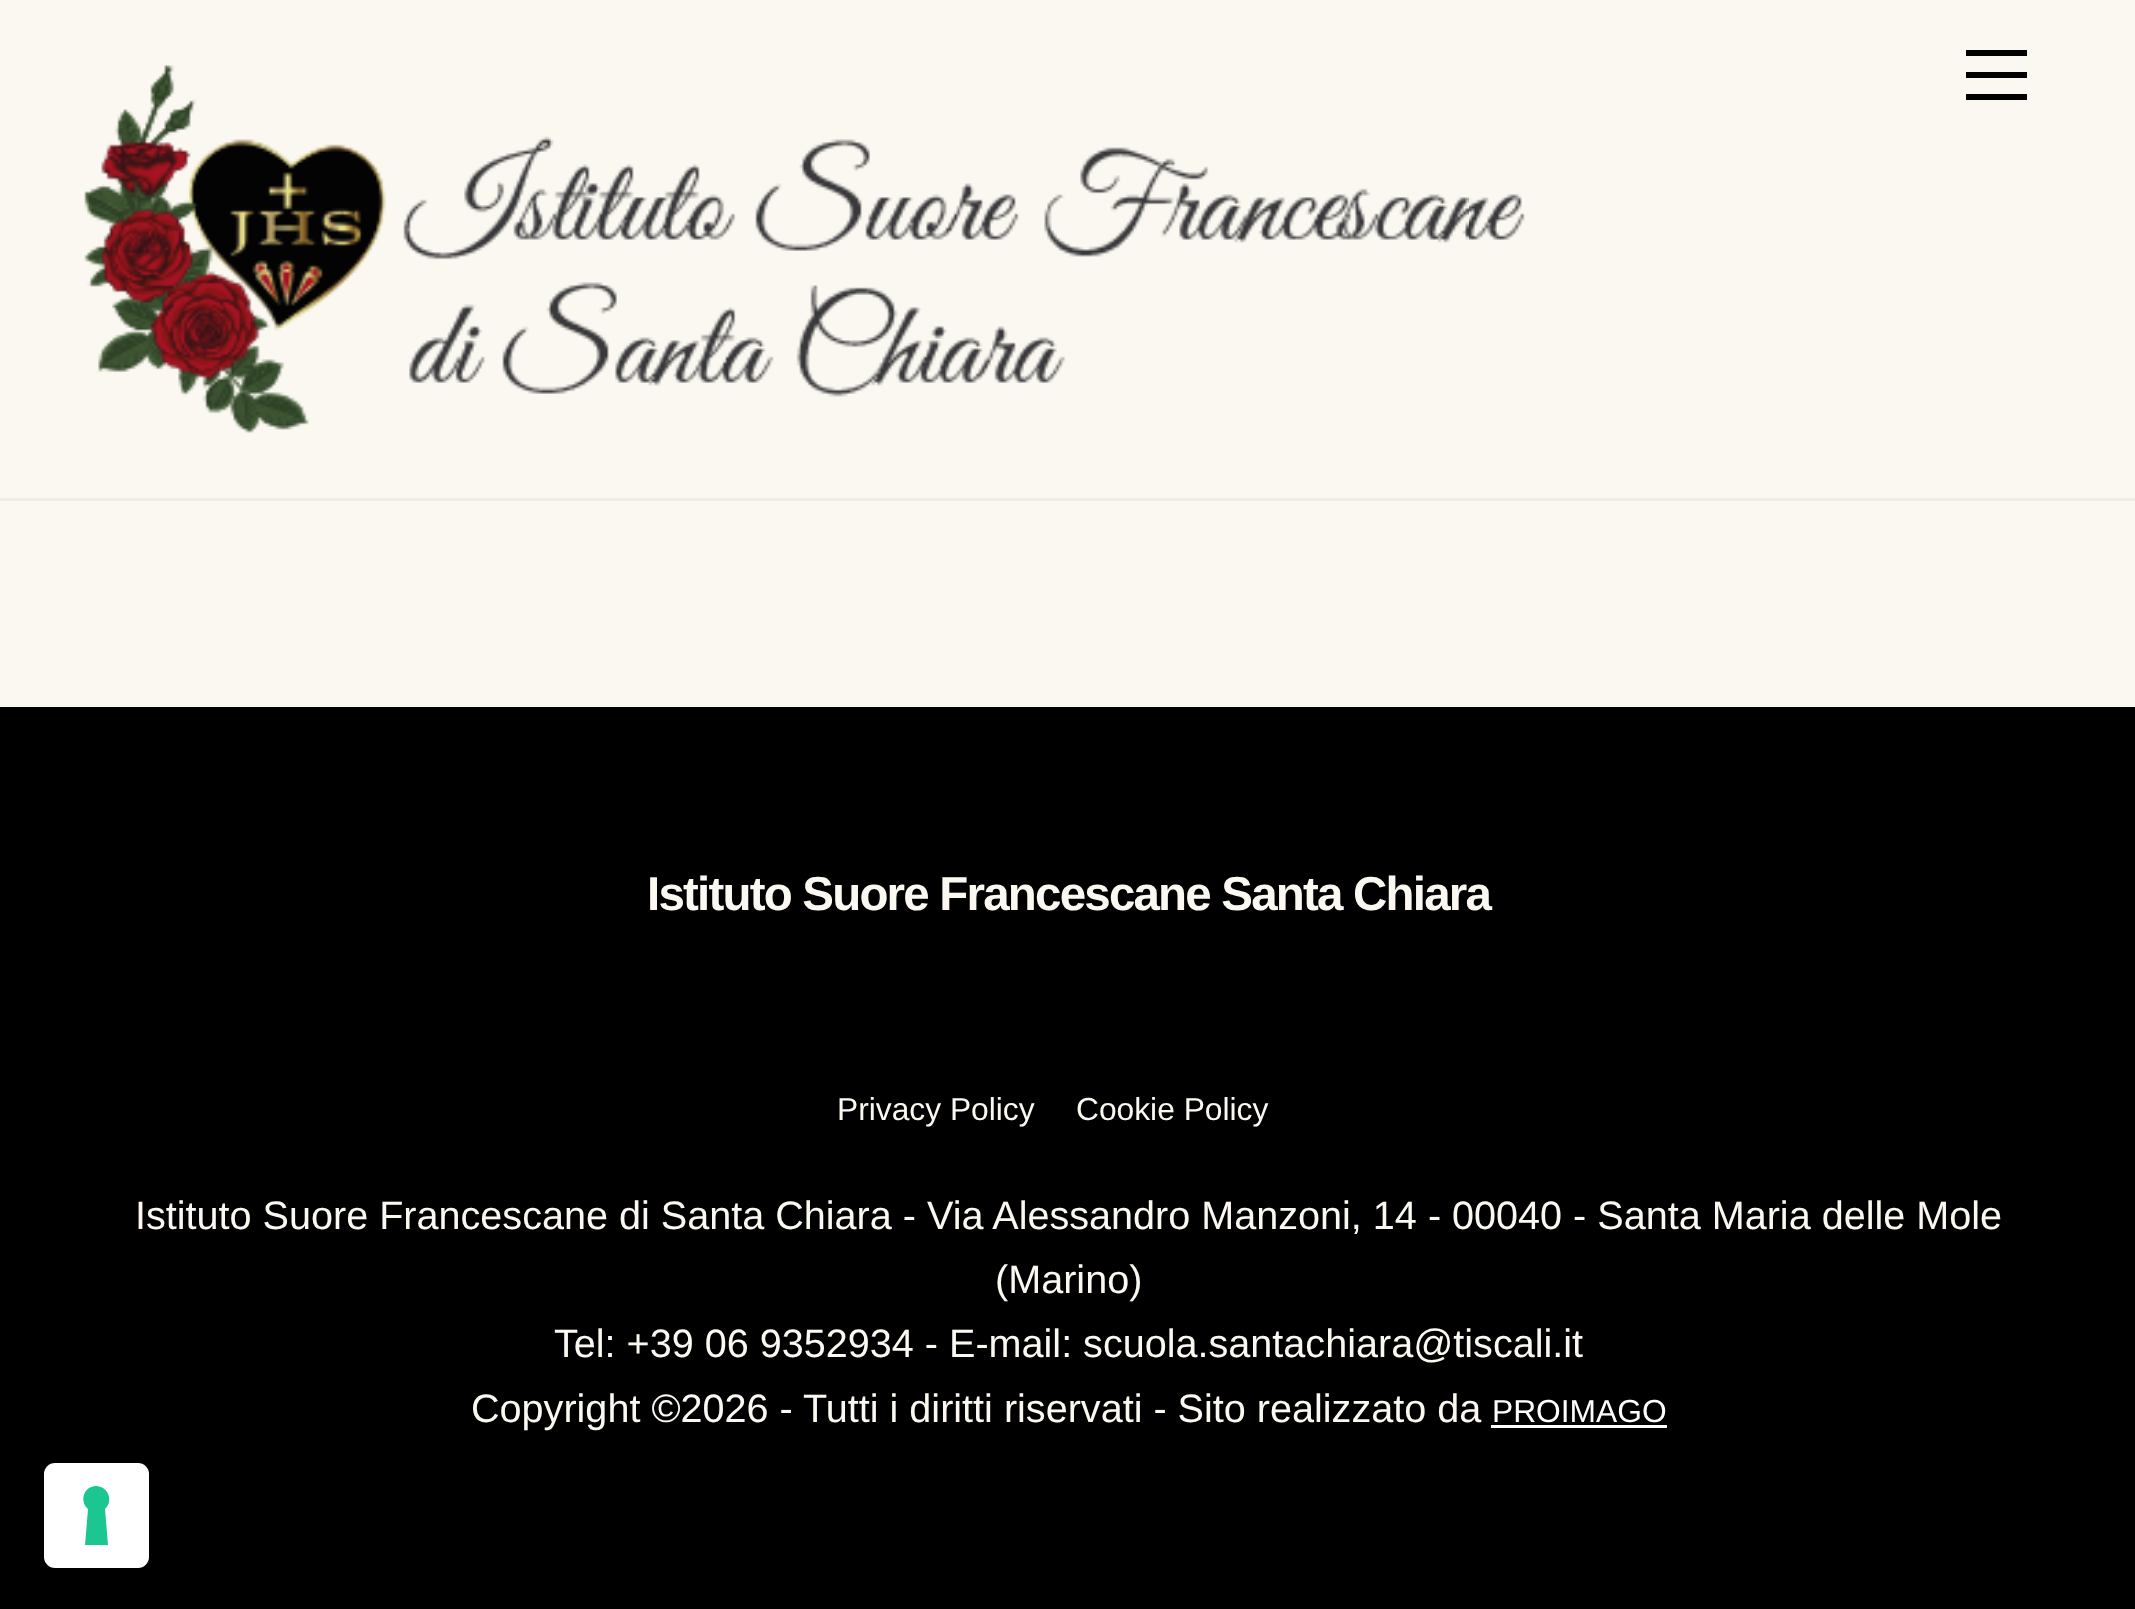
<!DOCTYPE html>
<meta charset="utf-8">
<style>body { margin: 0 } canvas { display: block }</style>
<canvas id="canvas" width="2135" height="1609"></canvas>
<img id="img1" src="images/1.png" hidden>
<script>
window.onload = function () {
    const canvas = document.getElementById('canvas');
    const context = canvas.getContext('2d');
    context.miterLimit = 4;
    context.fontKerning = 'normal';

    context.fillStyle = 'rgb(250, 248, 240)';
    context.fillRect(0, 0, 2135, 1609);
    context.fillStyle = 'rgb(238, 236, 228)';
    context.fillRect(0, 498, 2135, 3);
    context.drawImage(document.getElementById('img1'), 84, 65, 1441, 368);
    context.fillStyle = 'rgb(0, 0, 0)';
    context.fillRect(1966, 94, 61, 6);
    context.fillRect(1966, 50, 61, 6);
    context.fillRect(1966, 72, 61, 6);
    context.fillRect(0, 707, 2135, 902);
    context.fillStyle = 'rgb(255, 255, 255)';
    context.fillRect(1491, 1425, 176, 3);
    context.beginPath();
    context.roundRect(44, 1463, 105, 105, 11);
    context.fill();
    context.fillStyle = 'rgb(28, 198, 145)';
    context.beginPath();
    context.moveTo(96, 1486);
    context.bezierCurveTo(108, 1486, 114, 1501, 105, 1509);
    context.lineTo(108, 1545);
    context.lineTo(85, 1545);
    context.lineTo(88, 1509);
    context.bezierCurveTo(79, 1501, 84, 1486, 96, 1486);
    context.closePath();
    context.fill('evenodd');
    context.letterSpacing = '-1.8px';
    context.font = 'bold 47.5px Liberation Sans';
    context.fillStyle = 'rgb(250, 248, 240)';
    context.fillText('Istituto Suore Francescane Santa Chiara', 647, 910);
    context.letterSpacing = '0px';
    context.font = '31.75px Liberation Sans';
    context.fillText('Privacy Policy', 837, 1120);
    context.fillText('Cookie Policy', 1076, 1120);
    context.font = '39.6px Liberation Sans';
    context.fillText('Istituto Suore Francescane di Santa Chiara - Via Alessandro Manzoni, 14 - 00040 - Santa Maria delle Mole', 135, 1229);
    context.fillText('(Marino)', 995, 1293);
    context.fillText('Tel: +39 06 9352934 - E-mail: scuola.santachiara@tiscali.it', 554, 1357);
    context.fillText('Copyright ©2026 - Tutti i diritti riservati - Sito realizzato da', 471, 1422);
    context.font = '31.75px Liberation Sans';
    context.fillStyle = 'rgb(255, 255, 255)';
    context.fillText('PROIMAGO', 1492, 1422);
};
</script>
